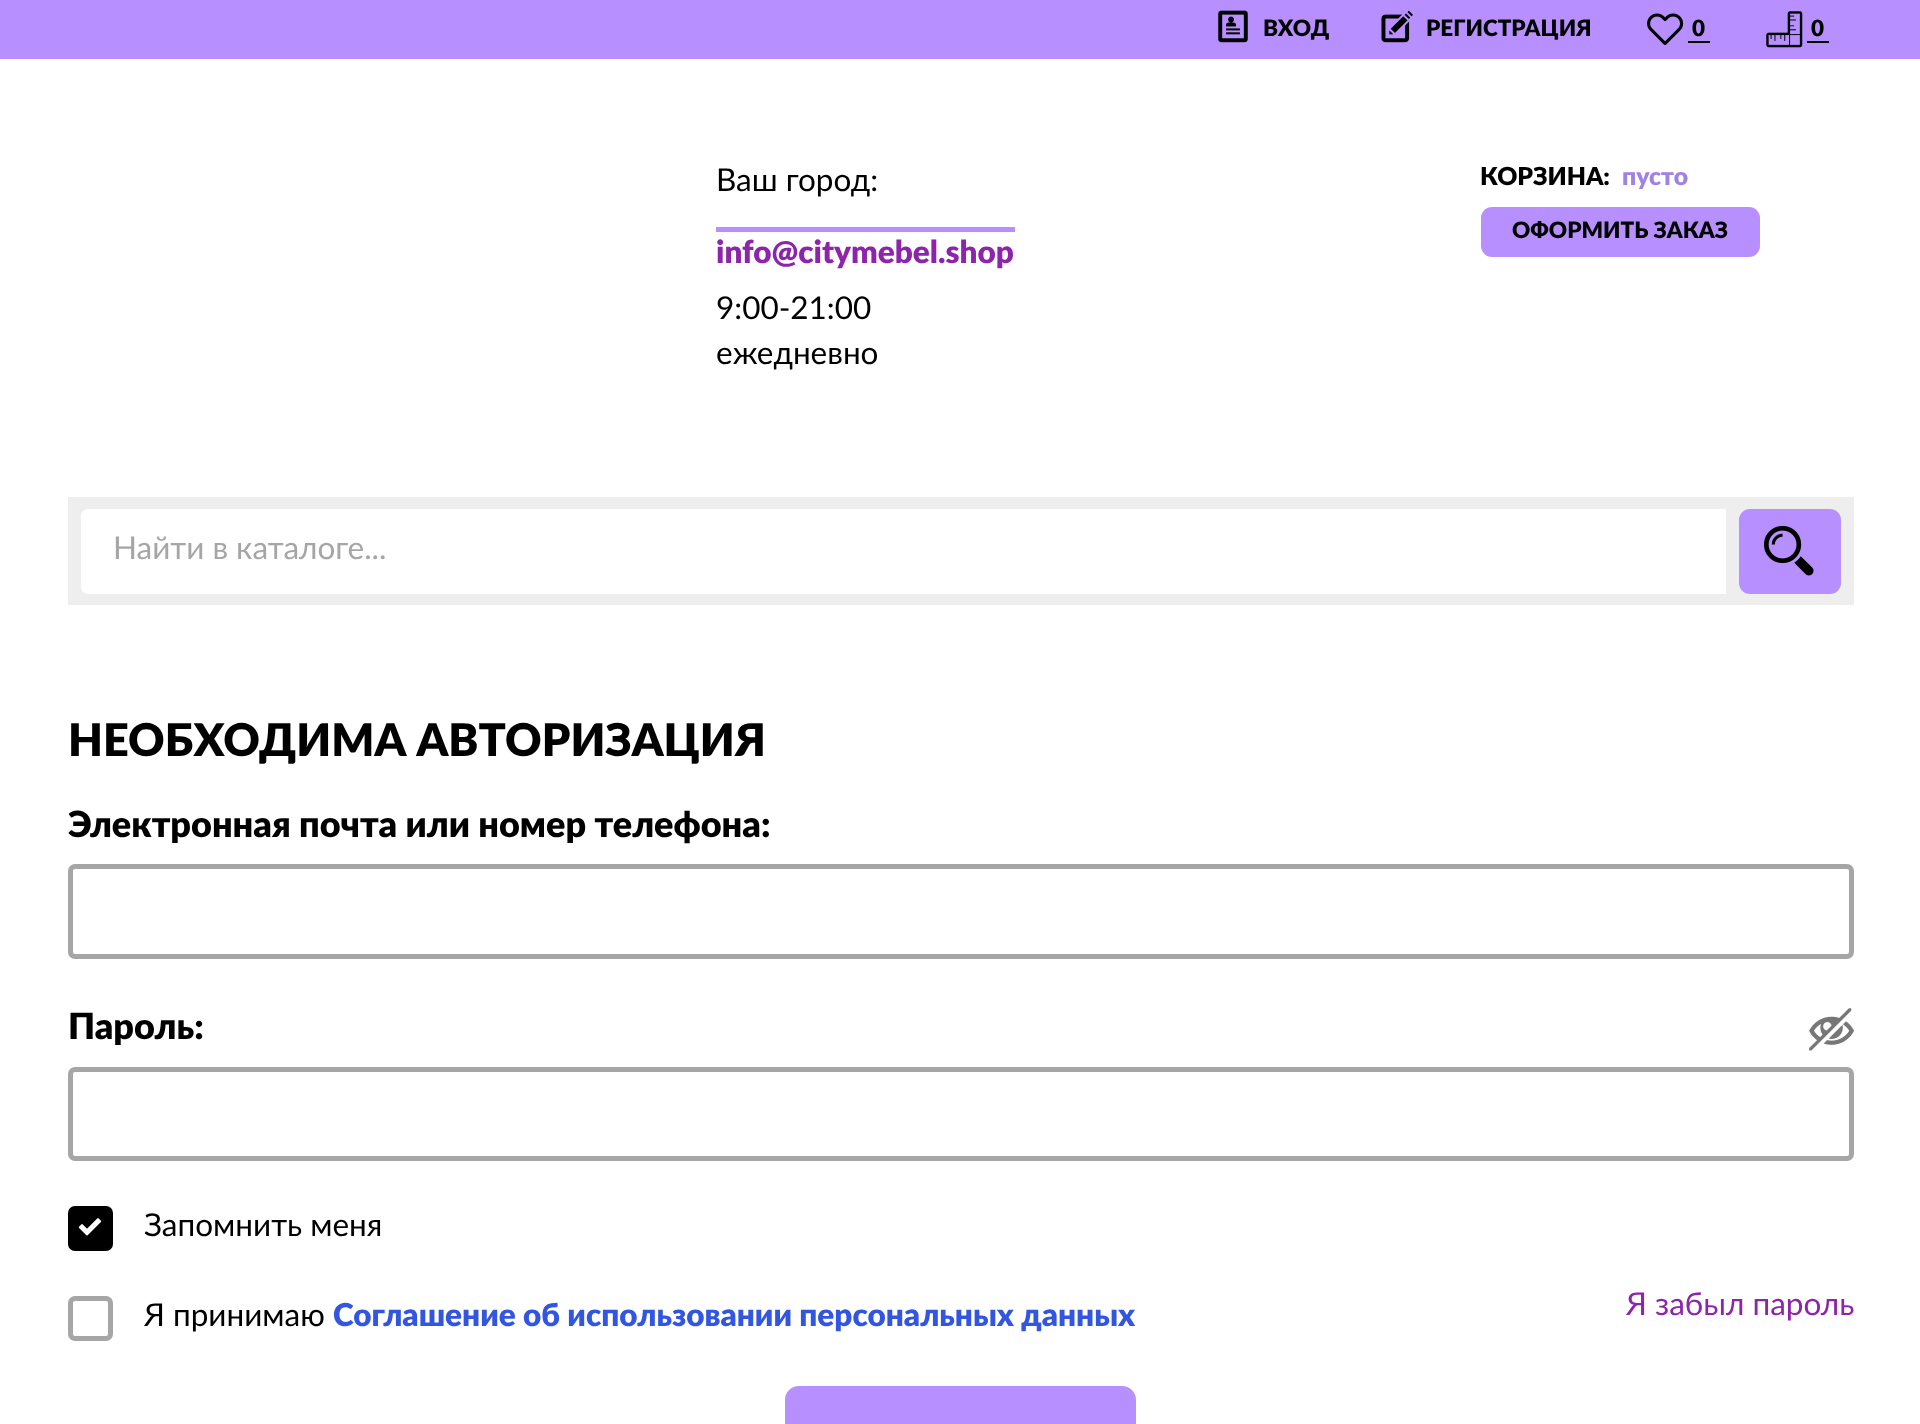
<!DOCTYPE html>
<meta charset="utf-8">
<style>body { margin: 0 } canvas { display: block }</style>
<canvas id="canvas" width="1920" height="1424"></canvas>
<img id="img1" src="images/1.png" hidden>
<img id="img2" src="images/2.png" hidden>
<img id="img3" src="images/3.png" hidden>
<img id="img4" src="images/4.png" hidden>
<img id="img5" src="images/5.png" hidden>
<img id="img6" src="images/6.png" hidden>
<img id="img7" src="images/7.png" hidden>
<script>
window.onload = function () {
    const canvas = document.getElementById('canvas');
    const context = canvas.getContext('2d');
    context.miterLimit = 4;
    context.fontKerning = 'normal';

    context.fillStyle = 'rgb(184, 143, 255)';
    context.fillRect(0, 0, 1920, 1424);
    context.drawImage(document.getElementById('img1'), 1218, 10, 30, 33);
    context.drawImage(document.getElementById('img2'), 1381, 10, 32, 33);
    context.drawImage(document.getElementById('img3'), 1647, 13, 37, 32);
    context.fillStyle = 'rgb(0, 0, 0)';
    context.fillRect(1688, 41, 22, 2);
    context.drawImage(document.getElementById('img4'), 1766, 11, 37, 37);
    context.fillRect(1807, 41, 22, 2);
    context.fillStyle = 'rgb(255, 255, 255)';
    context.fillRect(0, 59, 1920, 1365);
    context.fillStyle = 'rgb(184, 143, 255)';
    context.fillRect(716, 227, 299, 5);
    context.beginPath();
    context.roundRect(1481, 207, 279, 50, 11);
    context.fill();
    context.fillStyle = 'rgb(238, 238, 238)';
    context.fillRect(68, 497, 1786, 108);
    context.fillStyle = 'rgb(255, 255, 255)';
    context.beginPath();
    context.roundRect(83.5, 511.5, 1640, 80, [4.5, 0, 0, 4.5]);
    context.fill();
    context.strokeStyle = 'rgb(255, 255, 255)';
    context.lineWidth = 5;
    context.stroke();
    context.fillStyle = 'rgb(184, 143, 255)';
    context.beginPath();
    context.roundRect(1742.5, 512.5, 95, 78, 7.5);
    context.fill();
    context.strokeStyle = 'rgb(184, 143, 255)';
    context.lineWidth = 7;
    context.stroke();
    context.drawImage(document.getElementById('img5'), 1764, 525, 50, 51);
    context.beginPath();
    context.roundRect(70.5, 866.5, 1781, 90, 4.5);
    context.strokeStyle = 'rgb(166, 166, 166)';
    context.lineWidth = 5;
    context.stroke();
    context.drawImage(document.getElementById('img6'), 1809, 1008, 45, 43);
    context.beginPath();
    context.roundRect(70.5, 1069.5, 1781, 89, 4.5);
    context.stroke();
    context.fillStyle = 'rgb(0, 0, 0)';
    context.beginPath();
    context.roundRect(70.5, 1208.5, 40, 40, 4.5);
    context.fill();
    context.strokeStyle = 'rgb(0, 0, 0)';
    context.stroke();
    context.drawImage(document.getElementById('img7'), 78, 1218, 24, 18);
    context.beginPath();
    context.roundRect(70.5, 1298.5, 40, 40, 4.5);
    context.strokeStyle = 'rgb(166, 166, 166)';
    context.stroke();
    context.fillStyle = 'rgb(184, 143, 255)';
    context.beginPath();
    context.roundRect(788.5, 1389.5, 344, 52, 10.5);
    context.fill();
    context.strokeStyle = 'rgb(184, 143, 255)';
    context.lineWidth = 7;
    context.stroke();
    context.font = '900 22.5px Lato';
    context.fillStyle = 'rgb(0, 0, 0)';
    context.fillText('ВХОД', 1263, 36);
    context.fillText('РЕГИСТРАЦИЯ', 1426, 36);
    context.fillText('0', 1692, 36);
    context.fillText('0', 1811, 36);
    context.font = '31.5px Lato';
    context.fillText('Ваш город:', 716, 191);
    context.font = '900 31.5px Lato';
    context.fillStyle = 'rgb(140, 37, 172)';
    context.fillText('info@citymebel.shop', 716, 263);
    context.font = '900 24.75px Lato';
    context.fillStyle = 'rgb(0, 0, 0)';
    context.fillText('КОРЗИНА:', 1480, 185);
    context.fillStyle = 'rgb(160, 130, 227)';
    context.fillText('пусто', 1622, 185);
    context.font = '900 22.5px Lato';
    context.fillStyle = 'rgb(0, 0, 0)';
    context.fillText('ОФОРМИТЬ ЗАКАЗ', 1512, 238);
    context.font = '31.5px Lato';
    context.fillText('9:00-21:00', 716, 319);
    context.fillText('ежедневно', 716, 364);
    context.fillStyle = 'rgb(166, 166, 166)';
    context.fillText('Найти в каталоге...', 113, 559);
    context.font = '900 45px Lato';
    context.fillStyle = 'rgb(0, 0, 0)';
    context.fillText('НЕОБХОДИМА АВТОРИЗАЦИЯ', 68, 756);
    context.font = '900 36px Lato';
    context.fillText('Электронная почта или номер телефона:', 68, 837);
    context.fillText('Пароль:', 68, 1039);
    context.font = '31.5px Lato';
    context.fillText('Запомнить меня', 144, 1236);
    context.fillStyle = 'rgb(140, 37, 172)';
    context.fillText('Я забыл пароль', 1626, 1315);
    context.fillStyle = 'rgb(0, 0, 0)';
    context.fillText('Я принимаю', 144, 1326);
    context.font = '900 31.5px Lato';
    context.fillStyle = 'rgb(51, 86, 224)';
    context.fillText('Соглашение об использовании персональных данных', 333, 1326);
};
</script>
